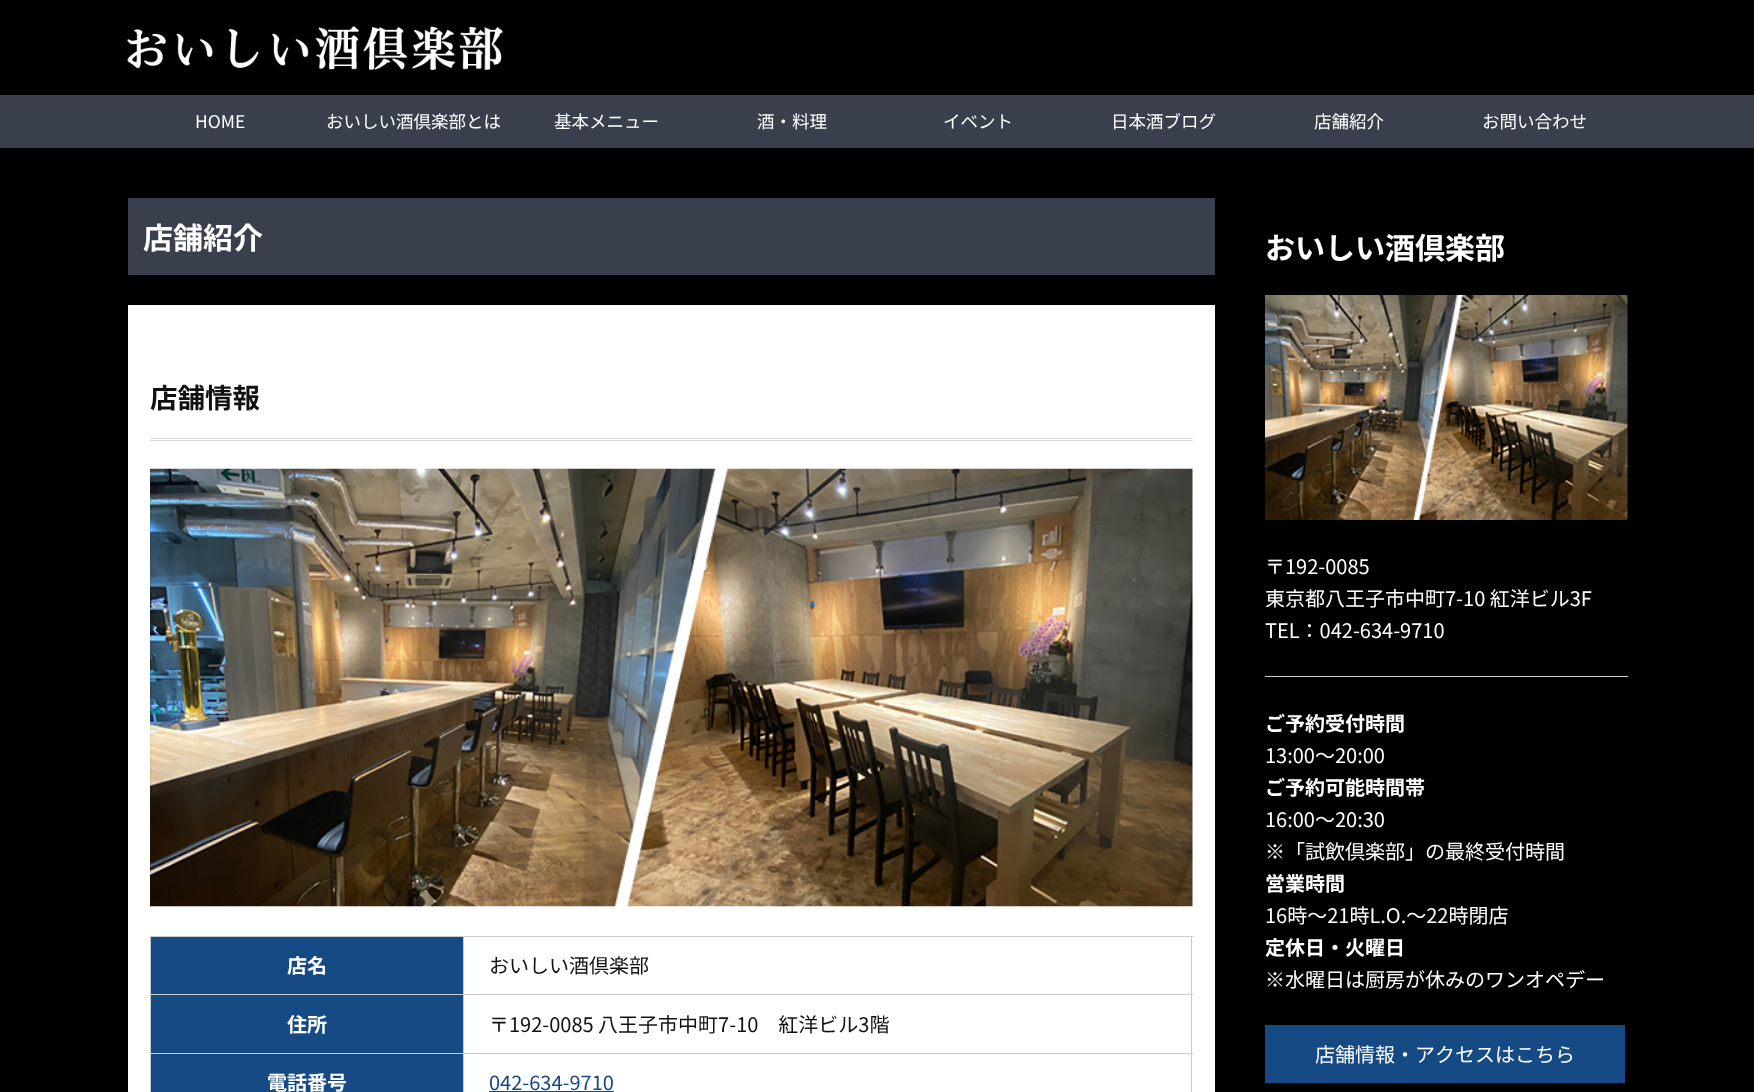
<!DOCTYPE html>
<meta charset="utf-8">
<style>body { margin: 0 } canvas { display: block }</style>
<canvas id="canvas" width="1754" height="1092"></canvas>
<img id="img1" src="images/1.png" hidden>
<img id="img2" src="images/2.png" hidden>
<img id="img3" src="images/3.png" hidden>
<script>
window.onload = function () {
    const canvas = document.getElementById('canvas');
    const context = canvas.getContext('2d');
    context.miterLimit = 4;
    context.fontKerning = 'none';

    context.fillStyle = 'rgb(0, 0, 0)';
    context.fillRect(0, 0, 1754, 1092);
    context.drawImage(document.getElementById('img1'), 127, 26, 376, 44);
    context.fillStyle = 'rgb(57, 63, 76)';
    context.fillRect(0, 95, 1754, 53);
    context.fillRect(128, 198, 1087, 77);
    context.fillStyle = 'rgb(255, 255, 255)';
    context.fillRect(128, 305, 1087, 787);
    context.fillStyle = 'rgb(219, 219, 219)';
    context.fillRect(150, 438, 1043, 1);
    context.fillRect(150, 440, 1043, 1);
    context.drawImage(document.getElementById('img2'), 150, 468, 1043, 439);
    context.fillStyle = 'rgb(204, 204, 204)';
    context.fillRect(150, 936, 1043, 1);
    context.fillRect(1191, 936, 1, 156);
    context.fillRect(150, 936, 1, 156);
    context.fillStyle = 'rgb(22, 74, 132)';
    context.fillRect(151, 937, 312, 57);
    context.fillStyle = 'rgb(204, 204, 204)';
    context.fillRect(463, 994, 730, 1);
    context.fillRect(463, 1053, 730, 1);
    context.fillRect(463, 1053, 1, 39);
    context.fillRect(150, 1053, 314, 1);
    context.fillRect(463, 994, 1, 60);
    context.fillRect(150, 994, 314, 1);
    context.fillRect(463, 936, 1, 59);
    context.fillStyle = 'rgb(22, 74, 132)';
    context.fillRect(151, 995, 312, 58);
    context.fillRect(151, 1054, 312, 38);
    context.fillRect(489, 1091, 125, 1);
    context.drawImage(document.getElementById('img3'), 1265, 295, 363, 225);
    context.fillStyle = 'rgb(204, 204, 204)';
    context.fillRect(1265, 676, 363, 1);
    context.fillStyle = 'rgb(22, 74, 132)';
    context.fillRect(1265, 1025, 360, 58);
    context.font = '17.5px Noto Sans JP';
    context.fillStyle = 'rgb(255, 255, 255)';
    context.fillText('HOME', 195, 128);
    context.fillText('おいしい酒倶楽部とは', 326, 128);
    context.fillText('基本メニュー', 554, 128);
    context.fillText('酒・料理', 757, 128);
    context.fillText('イベント', 943, 128);
    context.fillText('日本酒ブログ', 1111, 128);
    context.fillText('店舗紹介', 1314, 128);
    context.fillText('お問い合わせ', 1482, 128);
    context.font = 'bold 30px Noto Sans JP';
    context.fillText('店舗紹介', 143, 249);
    context.font = 'bold 27.5px Noto Sans JP';
    context.fillStyle = 'rgb(17, 17, 17)';
    context.fillText('店舗情報', 150, 408);
    context.font = 'bold 20px Noto Sans JP';
    context.fillStyle = 'rgb(255, 255, 255)';
    context.fillText('店名', 287, 973);
    context.font = '20px Noto Sans JP';
    context.fillStyle = 'rgb(17, 17, 17)';
    context.fillText('おいしい酒倶楽部', 489, 973);
    context.font = 'bold 20px Noto Sans JP';
    context.fillStyle = 'rgb(255, 255, 255)';
    context.fillText('住所', 287, 1032);
    context.font = '20px Noto Sans JP';
    context.fillStyle = 'rgb(17, 17, 17)';
    context.fillText('〒192-0085 八王子市中町7-10　紅洋ビル3階', 489, 1032);
    context.font = 'bold 20px Noto Sans JP';
    context.fillStyle = 'rgb(255, 255, 255)';
    context.fillText('電話番号', 267, 1090);
    context.font = '20px Noto Sans JP';
    context.fillStyle = 'rgb(22, 74, 132)';
    context.fillText('042-634-9710', 489, 1090);
    context.font = 'bold 30px Noto Sans JP';
    context.fillStyle = 'rgb(255, 255, 255)';
    context.fillText('おいしい酒倶楽部', 1265, 259);
    context.font = '20px Noto Sans JP';
    context.fillText('〒192-0085', 1265, 574);
    context.fillText('東京都八王子市中町7-10 紅洋ビル3F', 1265, 606);
    context.fillText('TEL：042-634-9710', 1265, 638);
    context.font = 'bold 20px Noto Sans JP';
    context.fillText('ご予約受付時間', 1265, 731);
    context.font = '20px Noto Sans JP';
    context.fillText('13:00～20:00', 1265, 763);
    context.font = 'bold 20px Noto Sans JP';
    context.fillText('ご予約可能時間帯', 1265, 795);
    context.font = '20px Noto Sans JP';
    context.fillText('16:00～20:30', 1265, 827);
    context.fillText('※「試飲倶楽部」の最終受付時間', 1265, 859);
    context.font = 'bold 20px Noto Sans JP';
    context.fillText('営業時間', 1265, 891);
    context.font = '20px Noto Sans JP';
    context.fillText('16時～21時L.O.～22時閉店', 1265, 923);
    context.font = 'bold 20px Noto Sans JP';
    context.fillText('定休日・火曜日', 1265, 955);
    context.font = '20px Noto Sans JP';
    context.fillText('※水曜日は厨房が休みのワンオペデー', 1265, 987);
    context.fillText('店舗情報・アクセスはこちら', 1315, 1062);
};
</script>
